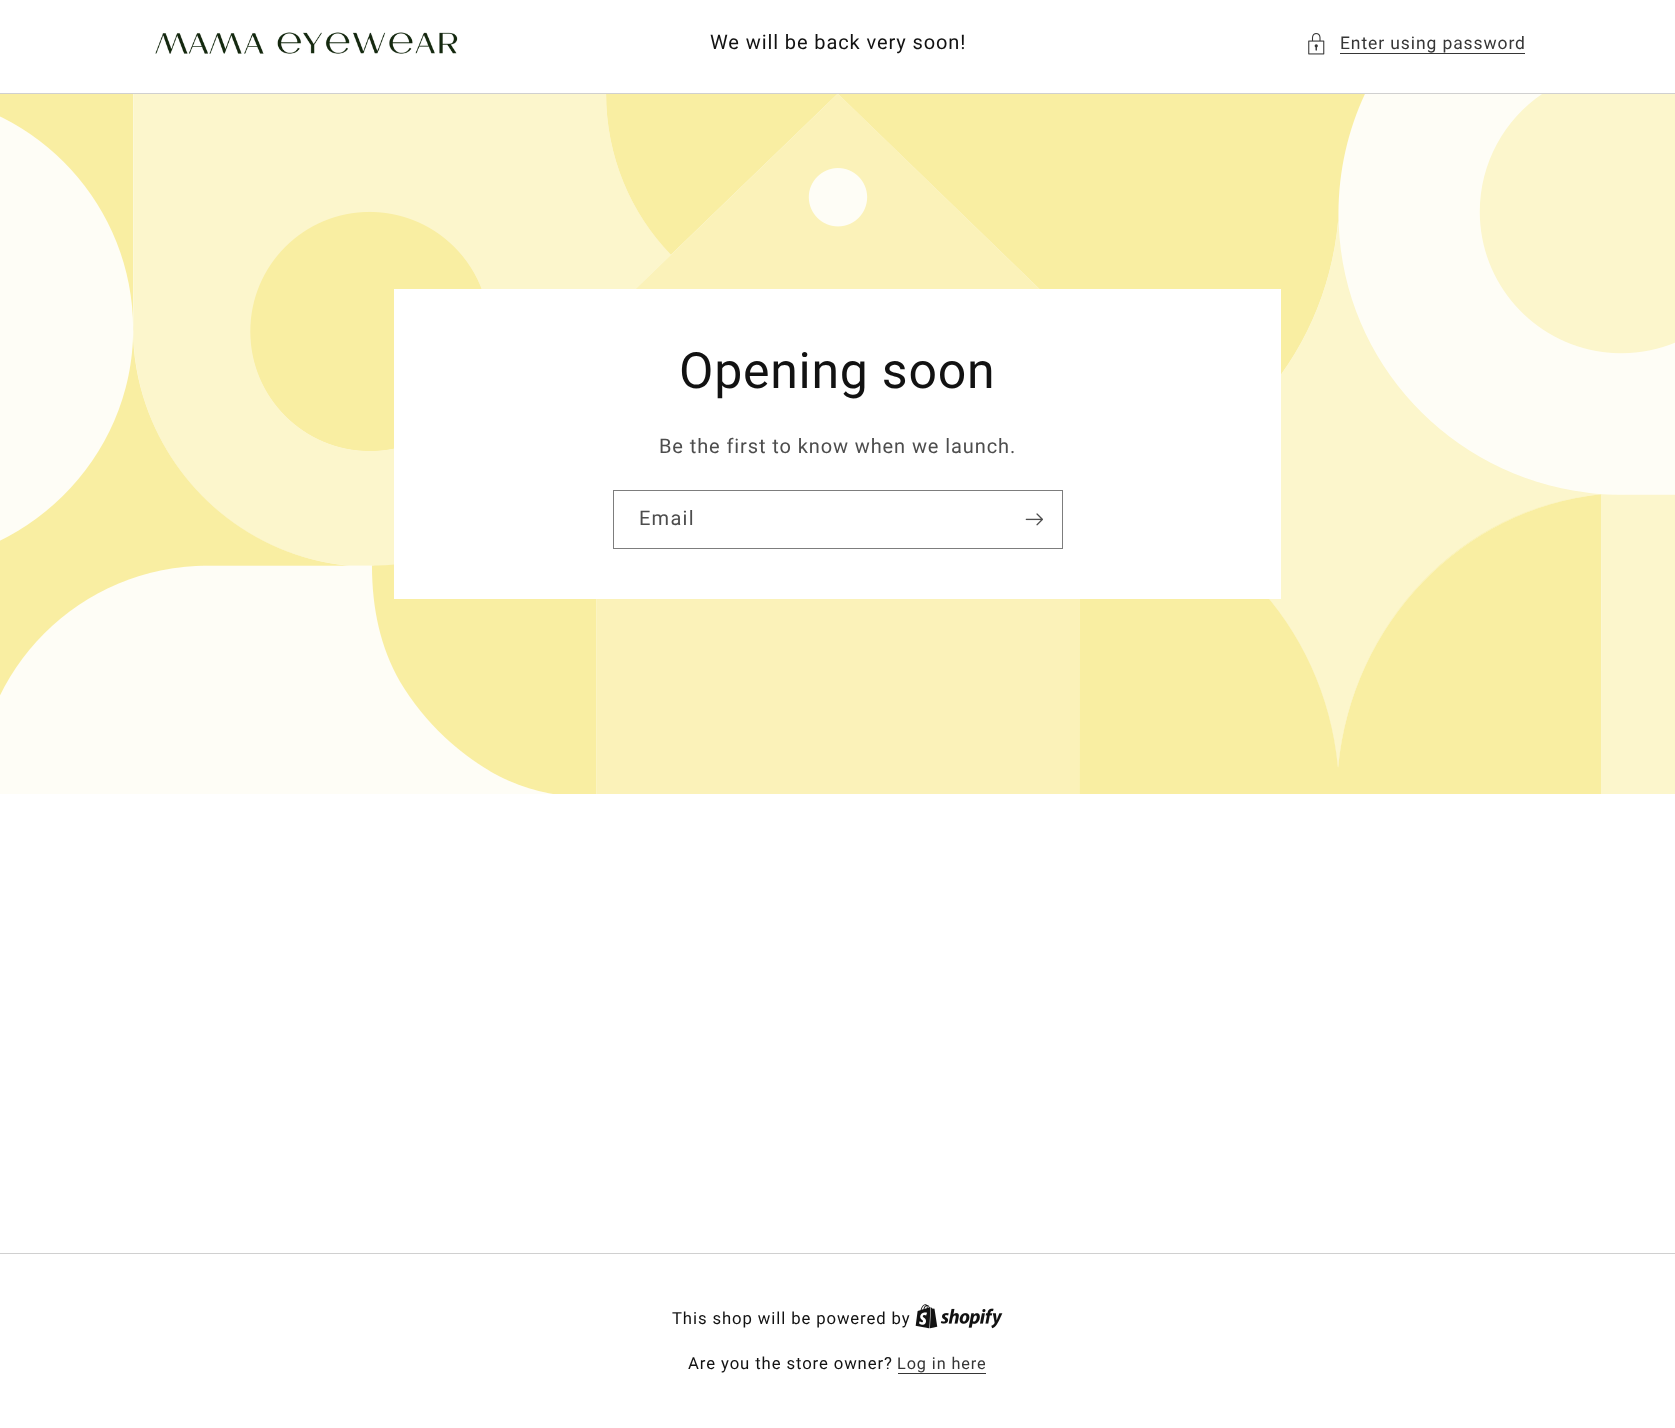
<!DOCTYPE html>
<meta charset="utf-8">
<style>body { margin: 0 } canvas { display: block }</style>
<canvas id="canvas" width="1675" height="1428"></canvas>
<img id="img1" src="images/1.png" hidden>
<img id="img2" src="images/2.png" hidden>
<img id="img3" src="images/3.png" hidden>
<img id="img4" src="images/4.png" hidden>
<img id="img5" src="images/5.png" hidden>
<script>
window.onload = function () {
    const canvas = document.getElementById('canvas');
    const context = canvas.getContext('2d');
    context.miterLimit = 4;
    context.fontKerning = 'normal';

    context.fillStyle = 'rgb(255, 255, 255)';
    context.fillRect(0, 0, 1675, 1428);
    context.drawImage(document.getElementById('img1'), 155, 32, 303, 22);
    context.drawImage(document.getElementById('img2'), 1308, 33, 17, 22);
    context.fillStyle = 'rgb(54, 54, 54)';
    context.fillRect(1340, 53, 185, 1);
    context.fillStyle = 'rgb(208, 208, 208)';
    context.fillRect(0, 93, 1675, 1);
    context.drawImage(document.getElementById('img3'), 0, 94, 1675, 700);
    context.fillStyle = 'rgb(255, 255, 255)';
    context.fillRect(394, 289, 887, 310);
    context.strokeStyle = 'rgb(125, 125, 125)';
    context.strokeRect(613.5, 490.5, 449, 58);
    context.drawImage(document.getElementById('img4'), 1025, 513, 18, 13);
    context.fillStyle = 'rgb(208, 208, 208)';
    context.fillRect(0, 1253, 1675, 1);
    context.drawImage(document.getElementById('img5'), 915, 1304, 88, 25);
    context.fillStyle = 'rgb(54, 54, 54)';
    context.fillRect(898, 1373, 88, 1);
    context.letterSpacing = '0.9px';
    context.font = '20px Roboto';
    context.fillStyle = 'rgb(18, 18, 18)';
    context.fillText('We will be back very soon!', 710, 49);
    context.font = '17.5px Roboto';
    context.fillStyle = 'rgb(54, 54, 54)';
    context.fillText('Enter using password', 1340, 49);
    context.letterSpacing = '0.75px';
    context.font = '50px Roboto';
    context.fillStyle = 'rgb(18, 18, 18)';
    context.fillText('Opening soon', 679, 388);
    context.letterSpacing = '0.9px';
    context.font = '20px Roboto';
    context.fillStyle = 'rgb(77, 77, 77)';
    context.fillText('Be the first to know when we launch.', 659, 453);
    context.letterSpacing = '1.25px';
    context.fillText('Email', 639, 525);
    context.letterSpacing = '0.9px';
    context.font = '16.7px Roboto';
    context.fillStyle = 'rgb(18, 18, 18)';
    context.fillText('This shop will be powered by', 672, 1324);
    context.fillText('Are you the store owner?', 688, 1369);
    context.font = '16.25px Roboto';
    context.fillStyle = 'rgb(54, 54, 54)';
    context.fillText('Log in here', 897, 1369);
};
</script>
